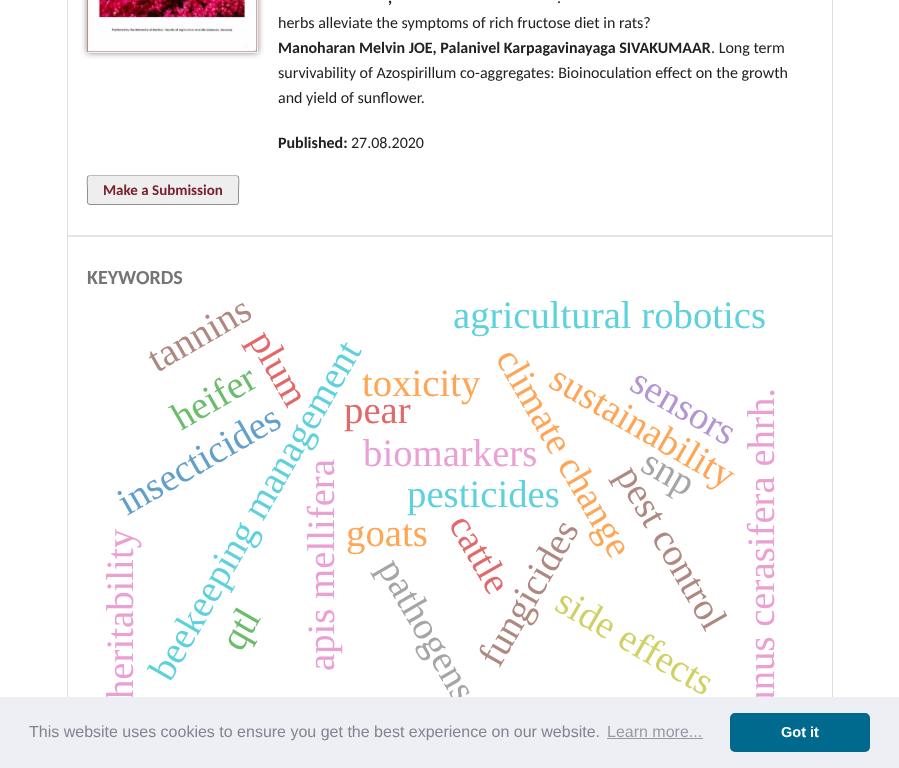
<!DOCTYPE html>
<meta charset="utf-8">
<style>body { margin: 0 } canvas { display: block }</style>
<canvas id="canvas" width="899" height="768"></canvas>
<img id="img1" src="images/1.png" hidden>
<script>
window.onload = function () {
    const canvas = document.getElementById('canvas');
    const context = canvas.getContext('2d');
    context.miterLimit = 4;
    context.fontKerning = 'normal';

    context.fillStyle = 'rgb(255, 255, 255)';
    context.fillRect(0, 0, 899, 768);
    context.fillStyle = 'rgb(229, 229, 229)';
    context.fillRect(67, 235, 765, 2);
    context.fillStyle = 'rgb(221, 221, 221)';
    context.fillRect(67, 0, 1, 697);
    context.fillStyle = 'rgb(136, 136, 136)';
    context.filter = 'blur(3px)';
    context.beginPath();
    context.rect(87, -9, 171, 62);
    context.fill();
    context.filter = 'none';
    context.drawImage(document.getElementById('img1'), 87, 0, 171, 53);
    context.fillStyle = 'rgb(221, 221, 221)';
    context.fillRect(832, 0, 1, 697);
    context.fillStyle = 'rgb(238, 238, 238)';
    context.beginPath();
    context.roundRect(87, 175, 152, 30, 3);
    context.fill();
    context.beginPath();
    context.moveTo(88, 176);
    context.lineTo(90, 175.5);
    context.lineTo(236, 175.5);
    context.lineTo(238, 176);
    context.strokeStyle = 'rgb(187, 187, 187)';
    context.stroke();
    context.beginPath();
    context.moveTo(238, 176);
    context.bezierCurveTo(239.5, 178, 238.5, 187.5, 238.5, 190);
    context.lineTo(238.5, 198);
    context.bezierCurveTo(238.5, 200, 239.5, 204.5, 236, 204.5);
    context.lineTo(90, 204.5);
    context.bezierCurveTo(86.5, 204.5, 87.5, 200, 87.5, 198);
    context.lineTo(87.5, 190);
    context.bezierCurveTo(87.5, 187.5, 86.5, 178, 88, 176);
    context.strokeStyle = 'rgba(0, 0, 0, 0.4)';
    context.stroke();
    context.font = 'bold 16px Carlito';
    context.fillStyle = 'rgb(33, 33, 33)';
    context.fillText(',', 388, 3);
    context.font = '16px Carlito';
    context.fillText('.', 557, 3);
    context.fillText('herbs alleviate the symptoms of rich fructose diet in rats?', 278, 28);
    context.font = 'bold 16px Carlito';
    context.fillText('Manoharan Melvin JOE, Palanivel Karpagavinayaga SIVAKUMAAR', 278, 53);
    context.font = '16px Carlito';
    context.fillText('. Long term', 711, 53);
    context.fillText('survivability of Azospirillum co-aggregates: Bioinoculation effect on the growth', 278, 78);
    context.fillText('and yield of sunflower.', 278, 103);
    context.font = 'bold 16px Carlito';
    context.fillText('Published:', 278, 148);
    context.font = '16px Carlito';
    context.fillText('27.08.2020', 351, 148);
    context.font = 'bold 15px Carlito';
    context.fillStyle = 'rgb(121, 34, 46)';
    context.fillText('Make a Submission', 103, 195);
    context.font = 'bold 20px Carlito';
    context.fillStyle = 'rgb(117, 117, 117)';
    context.fillText('KEYWORDS', 87, 284);
    context.font = '38.75px Liberation Serif';
    context.fillStyle = 'rgb(93, 210, 221)';
    context.fillText('agricultural robotics', 453, 328);
    context.fillStyle = 'rgb(255, 165, 86)';
    context.fillText('toxicity', 362, 396);
    context.fillStyle = 'rgb(235, 160, 212)';
    context.save();
    context.translate(774, 742);
    context.rotate(-90 * Math.PI / 180);
    context.fillText('prunus cerasifera ehrh.', 0, 0);
    context.restore();
    context.save();
    context.translate(334, 671);
    context.rotate(-90 * Math.PI / 180);
    context.fillText('apis mellifera', 0, 0);
    context.restore();
    context.fillStyle = 'rgb(93, 210, 221)';
    context.save();
    context.translate(170, 683);
    context.rotate(-60 * Math.PI / 180);
    context.fillText('beekeeping management', 0, 0);
    context.restore();
    context.fillStyle = 'rgb(226, 104, 105)';
    context.save();
    context.translate(248, 340);
    context.rotate(60 * Math.PI / 180);
    context.fillText('plum', 0, 0);
    context.restore();
    context.fillStyle = 'rgb(175, 137, 129)';
    context.save();
    context.translate(157, 373);
    context.rotate(-30 * Math.PI / 180);
    context.fillText('tannins', 0, 0);
    context.restore();
    context.fillStyle = 'rgb(107, 189, 107)';
    context.save();
    context.translate(181, 431);
    context.rotate(-30 * Math.PI / 180);
    context.fillText('heifer', 0, 0);
    context.restore();
    context.fillStyle = 'rgb(226, 104, 105)';
    context.fillText('pear', 344, 423);
    context.fillStyle = 'rgb(98, 160, 203)';
    context.save();
    context.translate(127, 516);
    context.rotate(-30 * Math.PI / 180);
    context.fillText('insecticides', 0, 0);
    context.restore();
    context.fillStyle = 'rgb(93, 210, 221)';
    context.fillText('pesticides', 407, 507);
    context.fillStyle = 'rgb(255, 165, 86)';
    context.save();
    context.translate(495, 358);
    context.rotate(60 * Math.PI / 180);
    context.fillText('climate change', 0, 0);
    context.restore();
    context.save();
    context.translate(547, 386);
    context.rotate(30 * Math.PI / 180);
    context.fillText('sustainability', 0, 0);
    context.restore();
    context.fillStyle = 'rgb(180, 149, 209)';
    context.save();
    context.translate(628, 389);
    context.rotate(30 * Math.PI / 180);
    context.fillText('sensors', 0, 0);
    context.restore();
    context.fillStyle = 'rgb(235, 160, 212)';
    context.fillText('biomarkers', 363, 466);
    context.fillStyle = 'rgb(175, 137, 129)';
    context.save();
    context.translate(615, 475);
    context.rotate(60 * Math.PI / 180);
    context.fillText('pest control', 0, 0);
    context.restore();
    context.fillStyle = 'rgb(165, 165, 165)';
    context.save();
    context.translate(639, 470);
    context.rotate(30 * Math.PI / 180);
    context.fillText('snp', 0, 0);
    context.restore();
    context.fillStyle = 'rgb(235, 160, 212)';
    context.save();
    context.translate(133, 699);
    context.rotate(-90 * Math.PI / 180);
    context.fillText('heritability', 0, 0);
    context.restore();
    context.fillStyle = 'rgb(255, 165, 86)';
    context.fillText('goats', 346, 546);
    context.fillStyle = 'rgb(175, 137, 129)';
    context.save();
    context.translate(499, 669);
    context.rotate(-60 * Math.PI / 180);
    context.fillText('fungicides', 0, 0);
    context.restore();
    context.fillStyle = 'rgb(107, 189, 107)';
    context.save();
    context.translate(241, 653);
    context.rotate(-60 * Math.PI / 180);
    context.fillText('qtl', 0, 0);
    context.restore();
    context.fillStyle = 'rgb(165, 165, 165)';
    context.save();
    context.translate(377, 568);
    context.rotate(60 * Math.PI / 180);
    context.fillText('pathogens', 0, 0);
    context.restore();
    context.fillStyle = 'rgb(226, 104, 105)';
    context.save();
    context.translate(448, 524);
    context.rotate(60 * Math.PI / 180);
    context.fillText('cattle', 0, 0);
    context.restore();
    context.fillStyle = 'rgb(208, 209, 100)';
    context.save();
    context.translate(553, 609);
    context.rotate(30 * Math.PI / 180);
    context.fillText('side effects', 0, 0);
    context.restore();
    context.fillStyle = 'rgb(237, 239, 245)';
    context.fillRect(0, 697, 899, 71);
    context.font = '16px Liberation Sans';
    context.fillStyle = 'rgb(131, 131, 145)';
    context.fillText('This website uses cookies to ensure you get the best experience on our website.', 29, 737);
    context.fillStyle = 'rgb(152, 153, 165)';
    context.fillText('Learn more...', 607, 737);
    context.fillRect(607, 738, 96, 1);
    context.fillStyle = 'rgb(0, 106, 142)';
    context.beginPath();
    context.roundRect(730, 713, 140, 39, 5);
    context.fill();
    context.font = 'bold 14.5px Liberation Sans';
    context.fillStyle = 'rgb(255, 255, 255)';
    context.fillText('Got it', 781, 737);
};
</script>
